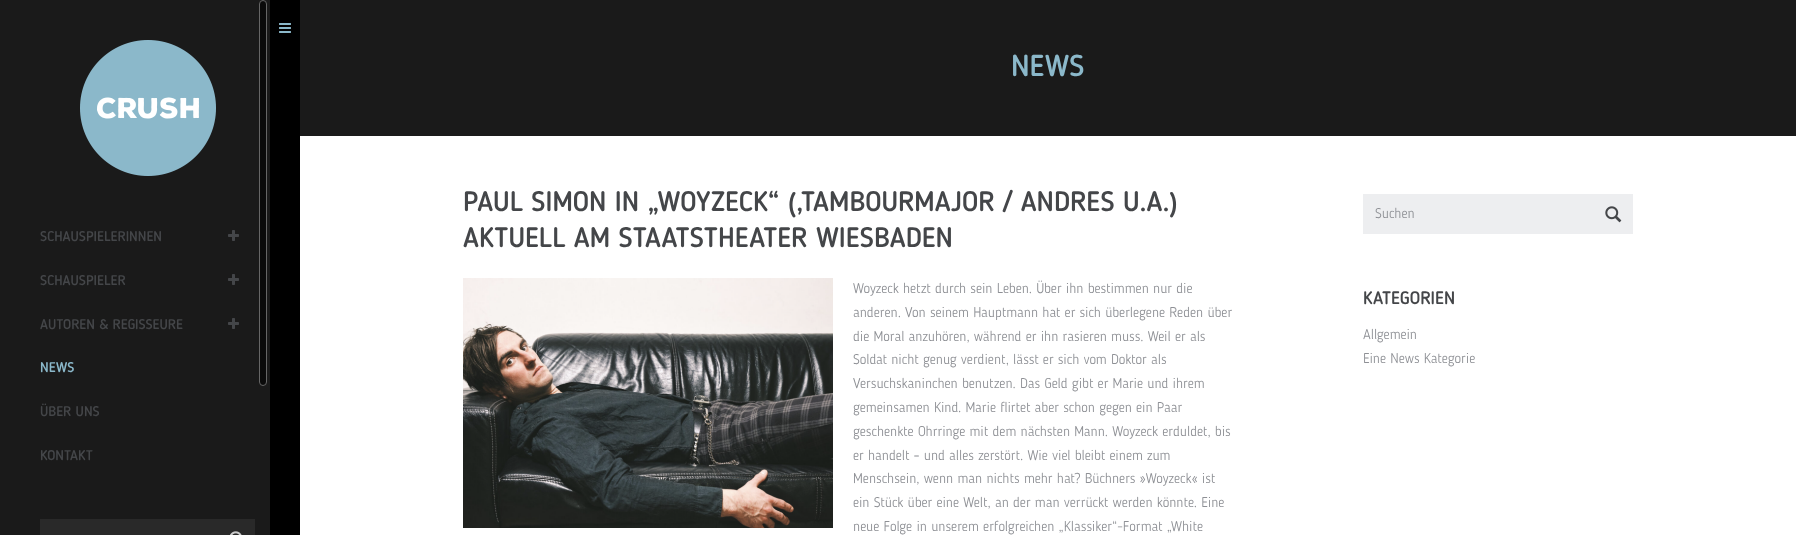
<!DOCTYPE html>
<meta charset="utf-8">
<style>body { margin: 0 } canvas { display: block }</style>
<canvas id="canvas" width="1796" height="535"></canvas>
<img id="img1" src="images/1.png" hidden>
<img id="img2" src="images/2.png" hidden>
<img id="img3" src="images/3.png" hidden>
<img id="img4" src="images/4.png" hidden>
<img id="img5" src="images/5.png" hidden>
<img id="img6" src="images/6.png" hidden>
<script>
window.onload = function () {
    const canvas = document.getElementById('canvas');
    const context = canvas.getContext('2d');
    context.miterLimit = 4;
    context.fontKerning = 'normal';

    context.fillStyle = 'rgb(255, 255, 255)';
    context.fillRect(0, 0, 1796, 535);
    context.fillStyle = 'rgb(26, 26, 26)';
    context.fillRect(0, 0, 270, 535);
    context.drawImage(document.getElementById('img1'), 80, 40, 136, 136);
    context.fillStyle = 'rgb(10, 10, 10)';
    context.beginPath();
    context.roundRect(259.5, 0.5, 7, 385, 3.5);
    context.fill();
    context.strokeStyle = 'rgb(102, 102, 102)';
    context.stroke();
    context.drawImage(document.getElementById('img2'), 228, 230, 11, 11);
    context.drawImage(document.getElementById('img2'), 228, 274, 11, 11);
    context.drawImage(document.getElementById('img2'), 228, 318, 11, 11);
    context.fillStyle = 'rgb(41, 41, 41)';
    context.fillRect(40, 519, 215, 16);
    context.drawImage(document.getElementById('img3'), 230, 531, 12, 4);
    context.fillStyle = 'rgb(0, 0, 0)';
    context.fillRect(270, 0, 30, 535);
    context.drawImage(document.getElementById('img4'), 279, 23, 12, 10);
    context.fillStyle = 'rgb(26, 26, 26)';
    context.fillRect(300, 0, 1496, 136);
    context.drawImage(document.getElementById('img5'), 463, 278, 370, 250);
    context.fillStyle = 'rgb(237, 238, 240)';
    context.fillRect(1363, 194, 270, 40);
    context.drawImage(document.getElementById('img6'), 1605, 206, 17, 17);
    context.font = '500 14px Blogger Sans';
    context.fillStyle = 'rgb(68, 70, 73)';
    context.fillText('SCHAUSPIELERINNEN', 40, 241);
    context.fillText('SCHAUSPIELER', 40, 285);
    context.fillText('AUTOREN & REGISSEURE', 40, 329);
    context.fillStyle = 'rgb(139, 184, 202)';
    context.fillText('NEWS', 40, 372);
    context.fillStyle = 'rgb(68, 70, 73)';
    context.fillText('ÜBER UNS', 40, 416);
    context.fillText('KONTAKT', 40, 460);
    context.font = '500 30px Blogger Sans';
    context.fillStyle = 'rgb(139, 184, 202)';
    context.fillText('NEWS', 1011, 76);
    context.font = '500 28px Blogger Sans';
    context.fillStyle = 'rgb(68, 70, 73)';
    context.fillText('PAUL SIMON IN „WOYZECK“ (‚TAMBOURMAJOR / ANDRES U.A.)', 463, 211);
    context.fillText('AKTUELL AM STAATSTHEATER WIESBADEN', 463, 247);
    context.font = '300 14px Blogger Sans';
    context.fillStyle = 'rgb(142, 144, 149)';
    context.fillText('Woyzeck hetzt durch sein Leben. Über ihn bestimmen nur die', 853, 293);
    context.fillText('anderen. Von seinem Hauptmann hat er sich überlegene Reden über', 853, 317);
    context.fillText('die Moral anzuhören, während er ihn rasieren muss. Weil er als', 853, 341);
    context.fillText('Soldat nicht genug verdient, lässt er sich vom Doktor als', 853, 364);
    context.fillText('Versuchskaninchen benutzen. Das Geld gibt er Marie und ihrem', 853, 388);
    context.fillText('gemeinsamen Kind. Marie flirtet aber schon gegen ein Paar', 853, 412);
    context.fillText('geschenkte Ohrringe mit dem nächsten Mann. Woyzeck erduldet, bis', 853, 436);
    context.fillText('er handelt – und alles zerstört. Wie viel bleibt einem zum', 853, 460);
    context.fillText('Menschsein, wenn man nichts mehr hat? Büchners »Woyzeck« ist', 853, 483);
    context.fillText('ein Stück über eine Welt, an der man verrückt werden könnte. Eine', 853, 507);
    context.fillText('neue Folge in unserem erfolgreichen „Klassiker“-Format „White', 853, 531);
    context.fillText('Suchen', 1375, 218);
    context.font = '500 18px Blogger Sans';
    context.fillStyle = 'rgb(68, 70, 73)';
    context.fillText('KATEGORIEN', 1363, 304);
    context.font = '300 14px Blogger Sans';
    context.fillStyle = 'rgb(142, 144, 149)';
    context.fillText('Allgemein', 1363, 339);
    context.fillText('Eine News Kategorie', 1363, 363);
};
</script>
